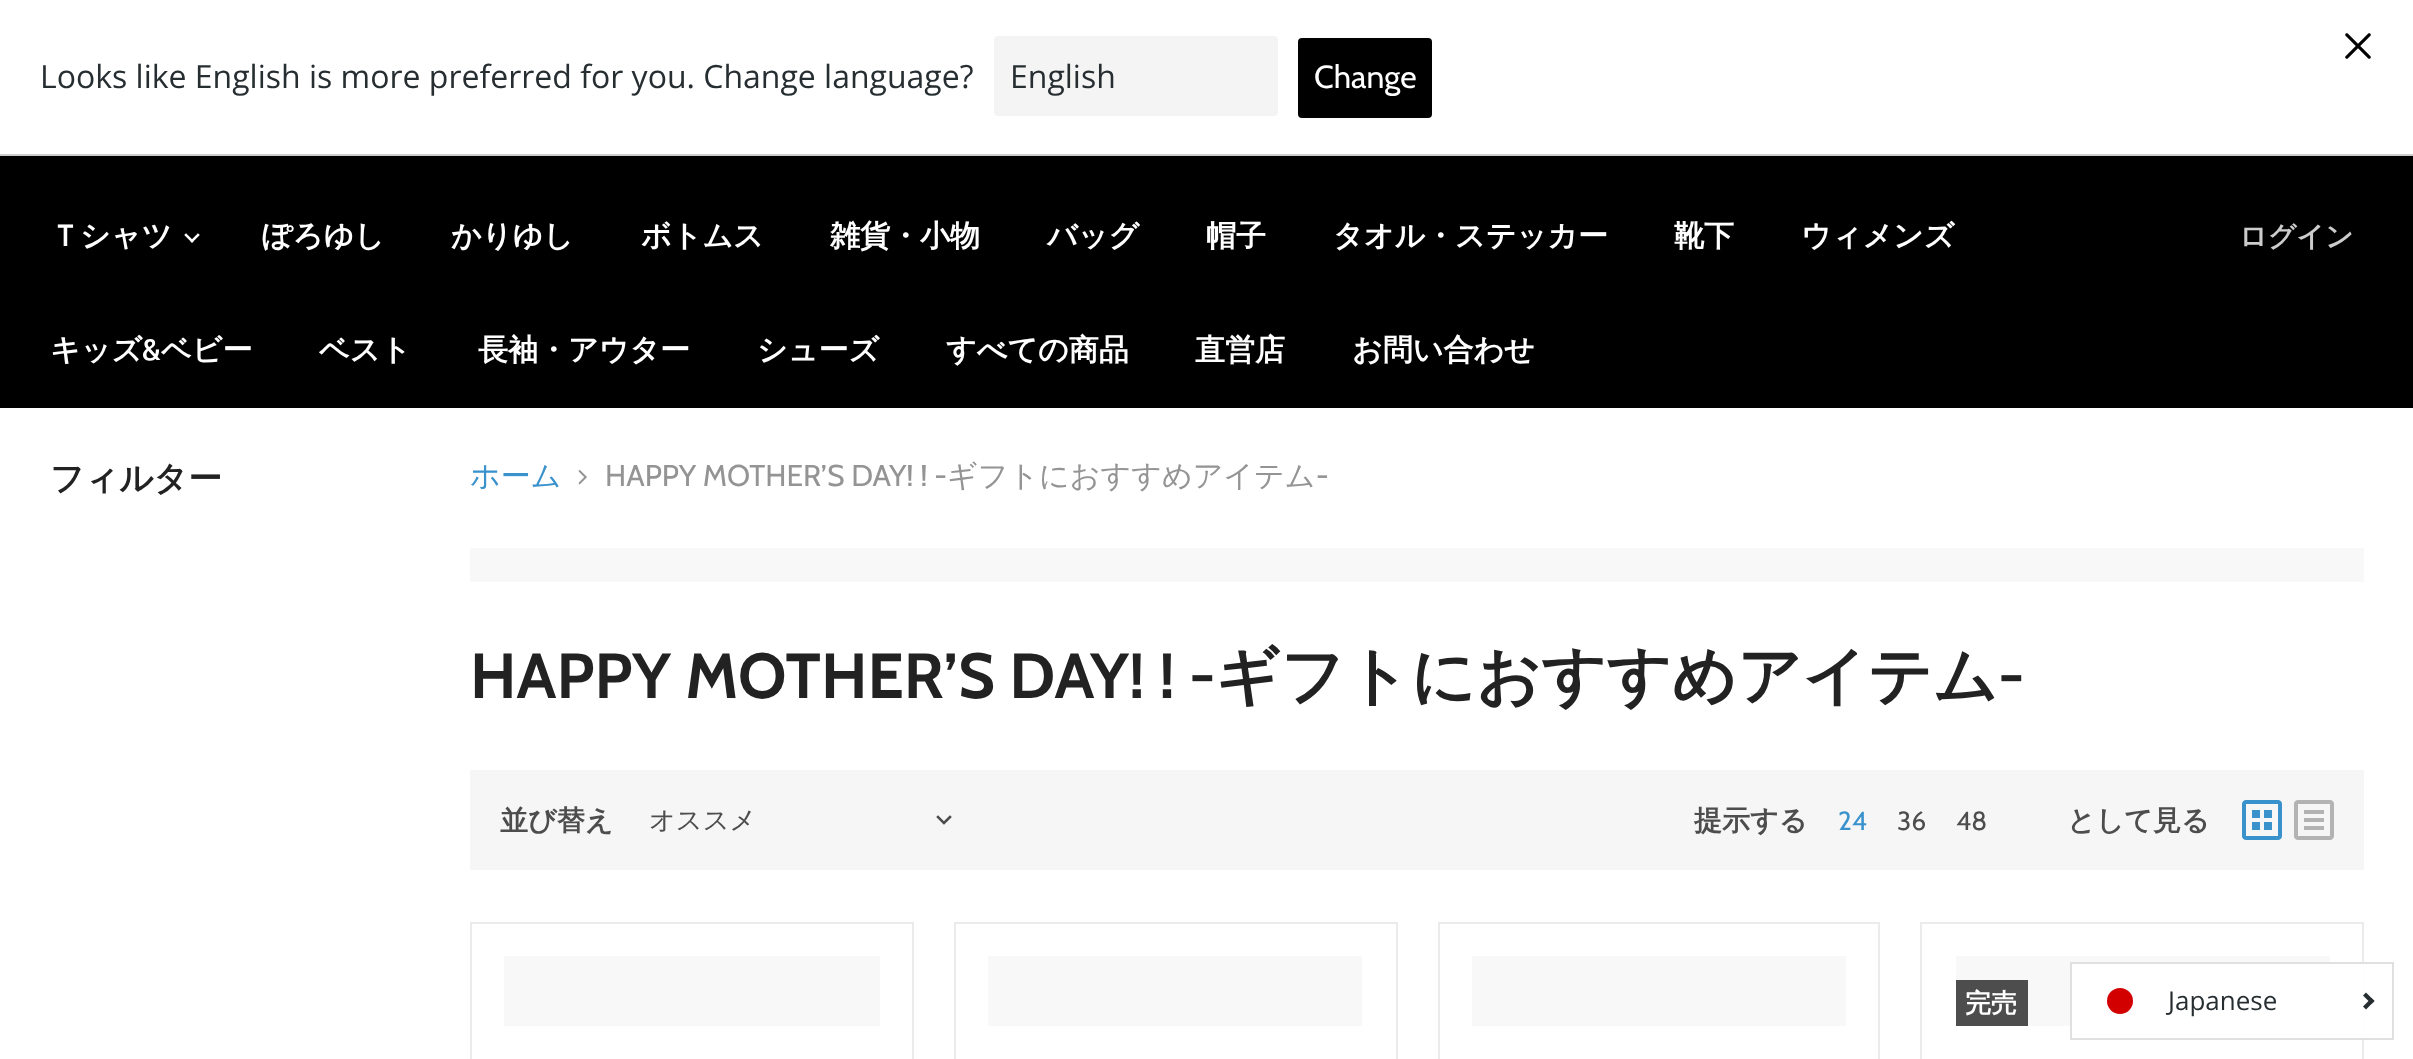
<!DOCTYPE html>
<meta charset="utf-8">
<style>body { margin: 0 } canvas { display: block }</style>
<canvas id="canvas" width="2413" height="1059"></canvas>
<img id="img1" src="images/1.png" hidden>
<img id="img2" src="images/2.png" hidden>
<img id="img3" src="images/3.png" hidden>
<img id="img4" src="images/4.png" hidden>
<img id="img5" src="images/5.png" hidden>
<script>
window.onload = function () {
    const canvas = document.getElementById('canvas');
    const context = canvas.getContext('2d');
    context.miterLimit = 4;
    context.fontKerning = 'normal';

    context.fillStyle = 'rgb(255, 255, 255)';
    context.fillRect(0, 0, 2413, 1059);
    context.fillStyle = 'rgb(204, 204, 204)';
    context.fillRect(0, 154, 2413, 2);
    context.drawImage(document.getElementById('img1'), 2345, 33, 26, 26);
    context.fillStyle = 'rgb(244, 244, 244)';
    context.beginPath();
    context.roundRect(994, 36, 284, 80, 4);
    context.fill();
    context.fillStyle = 'rgb(0, 0, 0)';
    context.beginPath();
    context.roundRect(1298, 38, 134, 80, 4);
    context.fill();
    context.fillRect(0, 156, 2413, 252);
    context.drawImage(document.getElementById('img2'), 184, 233, 16, 10);
    context.drawImage(document.getElementById('img3'), 578, 470, 9, 15);
    context.fillStyle = 'rgb(248, 248, 248)';
    context.fillRect(470, 548, 1894, 34);
    context.fillStyle = 'rgb(246, 246, 246)';
    context.fillRect(470, 770, 1894, 100);
    context.beginPath();
    context.moveTo(944, 823);
    context.lineTo(950, 817);
    context.moveTo(944, 823);
    context.lineTo(938, 817);
    context.strokeStyle = 'rgb(77, 77, 77)';
    context.lineWidth = 2.5;
    context.lineCap = 'square';
    context.stroke();
    context.drawImage(document.getElementById('img4'), 2242, 800, 40, 40);
    context.drawImage(document.getElementById('img5'), 2294, 800, 40, 40);
    context.strokeStyle = 'rgb(235, 235, 235)';
    context.lineWidth = 2;
    context.strokeRect(471, 923, 442, 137);
    context.fillStyle = 'rgb(248, 248, 248)';
    context.fillRect(504, 956, 376, 70);
    context.strokeRect(955, 923, 442, 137);
    context.fillRect(988, 956, 374, 70);
    context.strokeRect(1439, 923, 440, 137);
    context.fillRect(1472, 956, 374, 70);
    context.strokeRect(1921, 923, 442, 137);
    context.fillRect(1956, 956, 374, 70);
    context.fillStyle = 'rgb(77, 77, 77)';
    context.fillRect(1956, 980, 72, 46);
    context.fillStyle = 'rgba(255, 255, 255, 0.95)';
    context.fillRect(2072, 964, 292, 74);
    context.strokeStyle = 'rgb(224, 224, 224)';
    context.strokeRect(2071, 963, 322, 76);
    context.fillStyle = 'rgb(211, 0, 0)';
    context.beginPath();
    context.arc(2120, 1001, 13, 0, 2 * Math.PI);
    context.fill();
    context.fillStyle = 'rgb(39, 46, 49)';
    context.beginPath();
    context.moveTo(2366, 992.5);
    context.lineTo(2374.5, 1001);
    context.lineTo(2371.5, 1004);
    context.lineTo(2363, 995.5);
    context.closePath();
    context.fill();
    context.beginPath();
    context.moveTo(2371.5, 998);
    context.lineTo(2374.5, 1001);
    context.lineTo(2366, 1009.5);
    context.lineTo(2363, 1006.5);
    context.closePath();
    context.fill();
    context.font = '32px Open Sans';
    context.fillText('Looks like English is more preferred for you. Change language?', 40, 88);
    context.fillText('English', 1010, 88);
    context.font = '32px Cabin';
    context.fillStyle = 'rgb(255, 255, 255)';
    context.fillText('Change', 1314, 88);
    context.font = 'bold 30px WenQuanYi Zen Hei';
    context.fillText('Ｔシャツ', 50, 246);
    context.fillText('ぽろゆし', 262, 246);
    context.fillText('かりゆし', 451, 246);
    context.fillText('ボトムス', 641, 246);
    context.fillText('雑貨・小物', 830, 246);
    context.fillText('バッグ', 1047, 246);
    context.fillText('帽子', 1206, 246);
    context.fillText('タオル・ステッカー', 1333, 246);
    context.fillText('靴下', 1674, 246);
    context.fillText('ウィメンズ', 1801, 246);
    context.fillText('キッズ', 50, 360);
    context.font = '600 30px Cabin';
    context.fillText('&', 142, 360);
    context.font = 'bold 30px WenQuanYi Zen Hei';
    context.fillText('ベビー', 161, 360);
    context.fillText('ベスト', 319, 360);
    context.fillText('長袖・アウター', 478, 360);
    context.fillText('シューズ', 757, 360);
    context.fillText('すべての商品', 946, 360);
    context.fillText('直営店', 1195, 360);
    context.fillText('お問い合わせ', 1352, 360);
    context.font = 'bold 28px WenQuanYi Zen Hei';
    context.fillStyle = 'rgb(204, 204, 204)';
    context.fillText('ログイン', 2239, 246);
    context.font = 'bold 33.75px WenQuanYi Zen Hei';
    context.fillStyle = 'rgb(34, 34, 34)';
    context.fillText('フィルター', 50, 490);
    context.font = '500 30px WenQuanYi Zen Hei';
    context.fillStyle = 'rgb(58, 146, 205)';
    context.fillText('ホーム', 470, 486);
    context.font = '30px Cabin';
    context.fillStyle = 'rgb(148, 148, 148)';
    context.fillText('HAPPY MOTHER’S DAY! ! -', 605, 486);
    context.font = '500 30px WenQuanYi Zen Hei';
    context.fillText('ギフトにおすすめアイテム', 947, 486);
    context.font = '30px Cabin';
    context.fillText('-', 1316, 486);
    context.font = 'bold 63.75px Cabin';
    context.fillStyle = 'rgb(34, 34, 34)';
    context.fillText('HAPPY MOTHER’S DAY! !', 470, 698);
    context.fillText('-', 1189, 698);
    context.font = 'bold 63.75px WenQuanYi Zen Hei';
    context.fillText('ギフトにおすすめアイテム', 1215, 698);
    context.font = 'bold 63.75px Cabin';
    context.fillText('-', 1998, 698);
    context.font = 'bold 28px WenQuanYi Zen Hei';
    context.fillStyle = 'rgb(77, 77, 77)';
    context.fillText('並び替え', 500, 830);
    context.font = '500 26.25px WenQuanYi Zen Hei';
    context.fillText('オススメ', 649, 829);
    context.font = 'bold 28px WenQuanYi Zen Hei';
    context.fillText('提示する', 1694, 830);
    context.font = '26.25px Cabin';
    context.fillStyle = 'rgb(58, 146, 205)';
    context.fillText('24', 1838, 830);
    context.fillStyle = 'rgb(77, 77, 77)';
    context.fillText('36', 1897, 830);
    context.fillText('48', 1956, 830);
    context.font = 'bold 28px WenQuanYi Zen Hei';
    context.fillText('として見る', 2067, 830);
    context.font = 'bold 26px WenQuanYi Zen Hei';
    context.fillStyle = 'rgb(255, 255, 255)';
    context.fillText('完売', 1965, 1012);
    context.font = '26px Open Sans';
    context.fillStyle = 'rgb(39, 46, 49)';
    context.fillText('Japanese', 2168, 1010);
};
</script>
